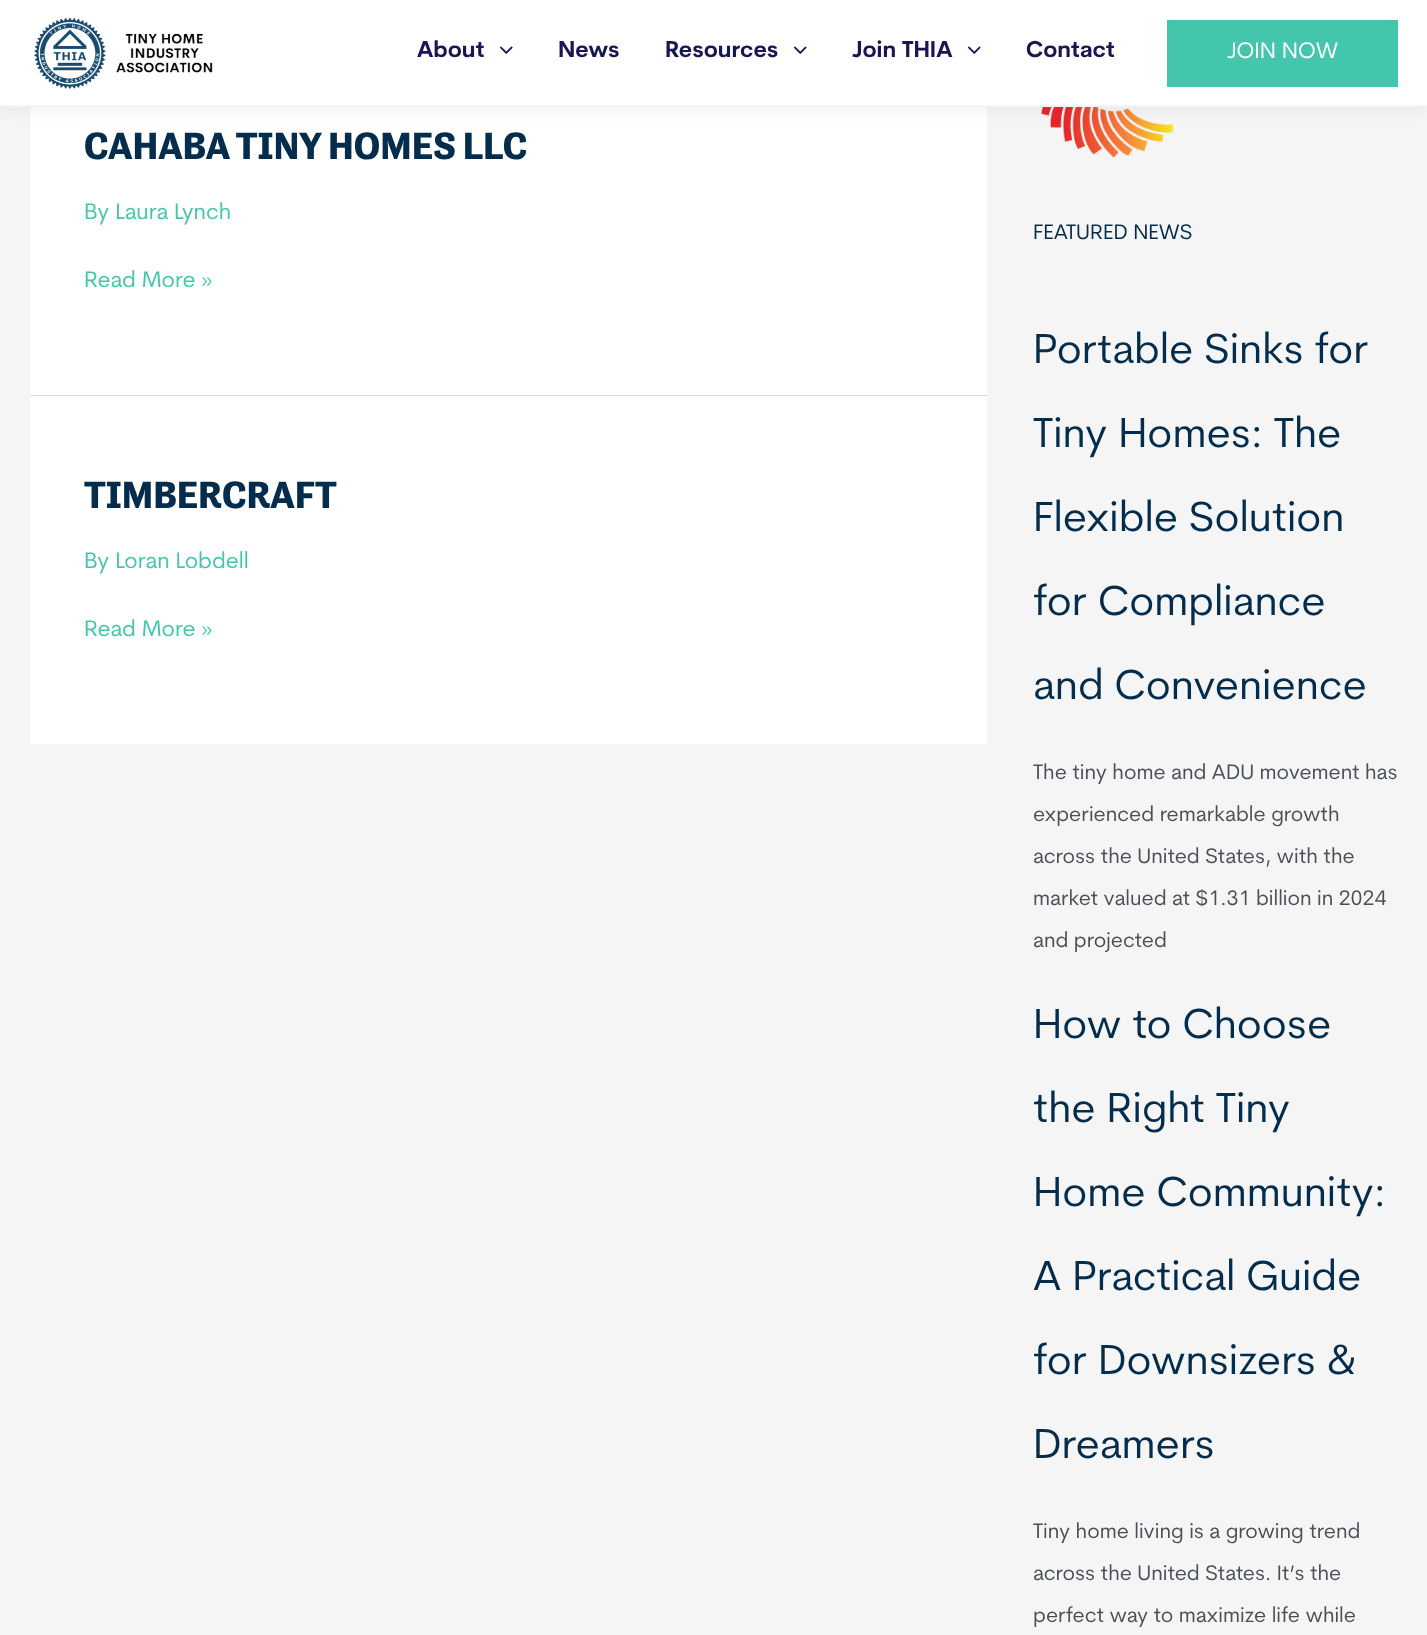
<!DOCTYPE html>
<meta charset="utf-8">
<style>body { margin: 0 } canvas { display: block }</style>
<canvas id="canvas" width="1427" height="1635"></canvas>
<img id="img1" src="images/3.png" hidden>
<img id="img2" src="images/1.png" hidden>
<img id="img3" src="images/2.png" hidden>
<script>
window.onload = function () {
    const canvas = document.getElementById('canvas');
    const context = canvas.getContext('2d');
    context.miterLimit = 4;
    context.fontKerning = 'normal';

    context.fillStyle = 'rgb(245, 245, 245)';
    context.fillRect(0, 0, 1427, 1635);
    context.fillStyle = 'rgb(255, 255, 255)';
    context.fillRect(30, 107, 957, 288);
    context.drawImage(document.getElementById('img1'), 1041, 107, 133, 51);
    context.fillStyle = 'rgba(36, 50, 66, 0.07)';
    context.filter = 'blur(7.5px)';
    context.beginPath();
    context.rect(0, 3, 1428, 107);
    context.fill();
    context.filter = 'none';
    context.fillStyle = 'rgb(255, 255, 255)';
    context.fillRect(0, 0, 1427, 105);
    context.fillStyle = 'rgb(242, 245, 247)';
    context.fillRect(0, 105, 1427, 2);
    context.drawImage(document.getElementById('img2'), 34, 17, 179, 72);
    context.drawImage(document.getElementById('img3'), 500, 46, 13, 8);
    context.drawImage(document.getElementById('img3'), 794, 46, 13, 8);
    context.drawImage(document.getElementById('img3'), 968, 46, 13, 8);
    context.fillStyle = 'rgb(67, 198, 172)';
    context.fillRect(1167, 20, 231, 67);
    context.fillStyle = 'rgb(221, 221, 221)';
    context.fillRect(30, 395, 957, 1);
    context.fillStyle = 'rgb(255, 255, 255)';
    context.fillRect(30, 396, 957, 348);
    context.font = 'bold 22.5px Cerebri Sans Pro';
    context.fillStyle = 'rgb(25, 22, 84)';
    context.fillText('About', 417, 57);
    context.fillText('News', 558, 57);
    context.fillText('Resources', 665, 57);
    context.fillText('Join THIA', 852, 57);
    context.fillText('Contact', 1026, 57);
    context.font = '22.5px Cerebri Sans Pro';
    context.fillStyle = 'rgb(255, 255, 255)';
    context.fillText('JOIN NOW', 1227, 58);
    context.font = 'bold 39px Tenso';
    context.fillStyle = 'rgb(4, 44, 76)';
    context.fillText('CAHABA TINY HOMES LLC', 84, 159);
    context.font = '22.5px Cerebri Sans Pro';
    context.fillStyle = 'rgb(67, 198, 172)';
    context.fillText('By Laura Lynch', 84, 219);
    context.fillText('Read More »', 84, 287);
    context.font = 'bold 39px Tenso';
    context.fillStyle = 'rgb(4, 44, 76)';
    context.fillText('TIMBERCRAFT', 84, 508);
    context.font = '22.5px Cerebri Sans Pro';
    context.fillStyle = 'rgb(67, 198, 172)';
    context.fillText('By Loran Lobdell', 84, 568);
    context.fillText('Read More »', 84, 636);
    context.font = '21px Cerebri Sans Pro';
    context.fillStyle = 'rgb(4, 44, 76)';
    context.fillText('FEATURED NEWS', 1033, 239);
    context.font = '42px Cerebri Sans Pro';
    context.fillText('Portable Sinks for', 1033, 363);
    context.fillText('Tiny Homes: The', 1033, 447);
    context.fillText('Flexible Solution', 1033, 531);
    context.fillText('for Compliance', 1033, 615);
    context.fillText('and Convenience', 1033, 699);
    context.font = '21px Cerebri Sans Pro';
    context.fillStyle = 'rgb(75, 79, 88)';
    context.fillText('The tiny home and ADU movement has', 1033, 779);
    context.fillText('experienced remarkable growth', 1033, 821);
    context.fillText('across the United States, with the', 1033, 863);
    context.fillText('market valued at $1.31 billion in 2024', 1033, 905);
    context.fillText('and projected', 1033, 947);
    context.font = '42px Cerebri Sans Pro';
    context.fillStyle = 'rgb(4, 44, 76)';
    context.fillText('How to Choose', 1033, 1038);
    context.fillText('the Right Tiny', 1033, 1122);
    context.fillText('Home Community:', 1033, 1206);
    context.fillText('A Practical Guide', 1033, 1290);
    context.fillText('for Downsizers &', 1033, 1374);
    context.fillText('Dreamers', 1033, 1458);
    context.font = '21px Cerebri Sans Pro';
    context.fillStyle = 'rgb(75, 79, 88)';
    context.fillText('Tiny home living is a growing trend', 1033, 1538);
    context.fillText('across the United States. It’s the', 1033, 1580);
    context.fillText('perfect way to maximize life while', 1033, 1622);
};
</script>
